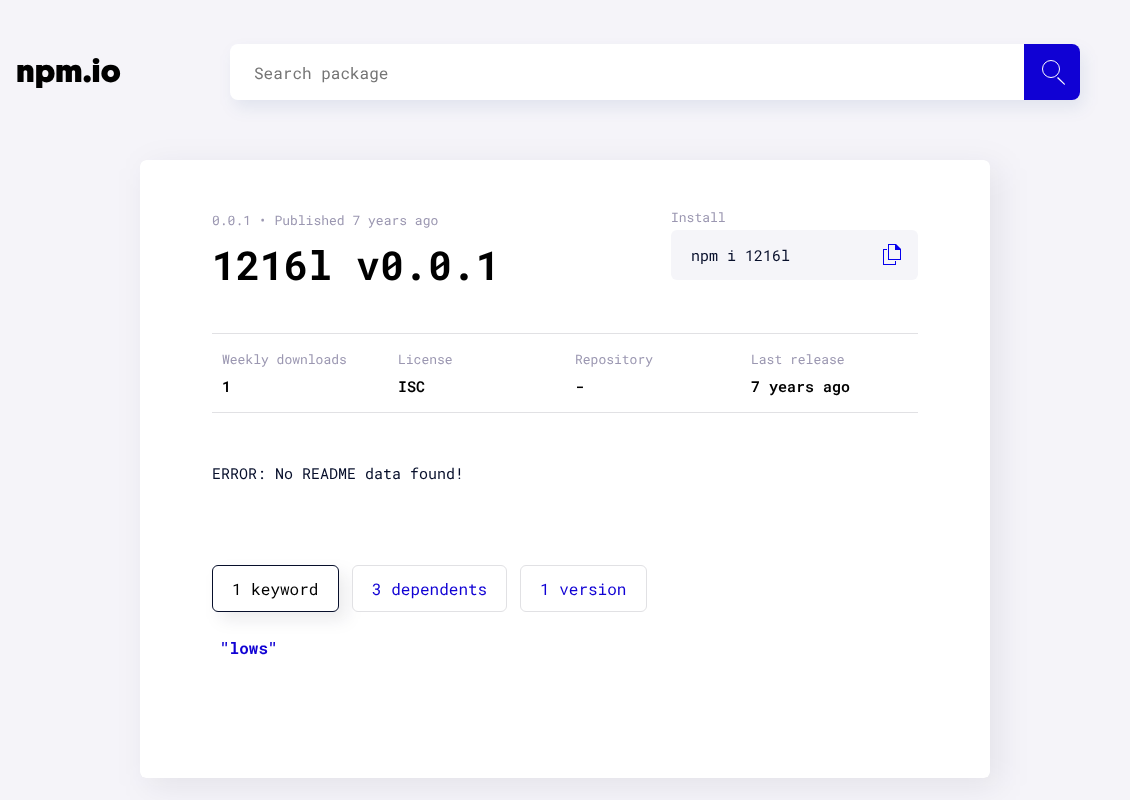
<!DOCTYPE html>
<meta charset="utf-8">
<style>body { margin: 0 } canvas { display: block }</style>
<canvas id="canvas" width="1130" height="800"></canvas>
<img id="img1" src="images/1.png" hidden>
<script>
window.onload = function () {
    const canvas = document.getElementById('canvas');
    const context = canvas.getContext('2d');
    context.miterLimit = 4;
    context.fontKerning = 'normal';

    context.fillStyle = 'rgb(245, 244, 249)';
    context.fillRect(0, 0, 1130, 800);
    context.fillStyle = 'rgba(0, 48, 111, 0.08)';
    context.filter = 'blur(8px)';
    context.beginPath();
    context.roundRect(234, 52, 850, 56, 8);
    context.fill();
    context.filter = 'none';
    context.fillStyle = 'rgb(255, 255, 255)';
    context.beginPath();
    context.roundRect(230, 44, 850, 56, 8);
    context.fill();
    context.fillStyle = 'rgb(16, 1, 212)';
    context.beginPath();
    context.roundRect(1024, 44, 56, 56, [0, 8, 8, 0]);
    context.fill();
    context.beginPath();
    context.arc(1051, 69, 8.5, 0, 2 * Math.PI);
    context.strokeStyle = 'rgb(255, 255, 255)';
    context.stroke();
    context.fillStyle = 'rgb(255, 255, 255)';
    context.beginPath();
    context.moveTo(1057, 78);
    context.lineTo(1058, 77);
    context.lineTo(1065, 84);
    context.lineTo(1064.5, 85);
    context.closePath();
    context.fill();
    context.fillStyle = 'rgba(8, 15, 41, 0.08)';
    context.filter = 'blur(0.5px)';
    context.beginPath();
    context.roundRect(140, 160, 850, 618, 6);
    context.fill();
    context.filter = 'none';
    context.filter = 'blur(16px)';
    context.beginPath();
    context.roundRect(148, 168, 850, 618, 6);
    context.fill();
    context.filter = 'none';
    context.fillStyle = 'rgb(255, 255, 255)';
    context.beginPath();
    context.roundRect(140, 160, 850, 618, 6);
    context.fill();
    context.fillStyle = 'rgb(225, 225, 228)';
    context.fillRect(212, 412, 706, 1);
    context.fillStyle = 'rgb(245, 245, 249)';
    context.beginPath();
    context.roundRect(671, 230, 247, 50, 6);
    context.fill();
    context.drawImage(document.getElementById('img1'), 883, 244, 18, 21);
    context.fillStyle = 'rgb(225, 225, 228)';
    context.fillRect(212, 333, 706, 1);
    context.fillStyle = 'rgba(8, 15, 41, 0.08)';
    context.filter = 'blur(8px)';
    context.beginPath();
    context.roundRect(220, 573, 127, 47, 6);
    context.fill();
    context.filter = 'none';
    context.fillStyle = 'rgb(255, 255, 255)';
    context.beginPath();
    context.roundRect(212.5, 565.5, 126, 46, 5.5);
    context.fill();
    context.strokeStyle = 'rgb(7, 15, 43)';
    context.stroke();
    context.beginPath();
    context.roundRect(352.5, 565.5, 154, 46, 5.5);
    context.fill();
    context.strokeStyle = 'rgb(225, 225, 228)';
    context.stroke();
    context.beginPath();
    context.roundRect(520.5, 565.5, 126, 46, 5.5);
    context.stroke();
    context.font = '900 32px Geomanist';
    context.fillStyle = 'rgb(0, 0, 0)';
    context.fillText('npm.io', 16, 82);
    context.font = '16px Roboto Mono';
    context.fillStyle = 'rgb(117, 117, 117)';
    context.fillText('Search package', 254, 79);
    context.font = '13px Roboto Mono';
    context.fillStyle = 'rgb(155, 151, 177)';
    context.fillText('0.0.1 • Published 7 years ago', 212, 225);
    context.font = 'bold 40px Roboto Mono';
    context.fillStyle = 'rgb(0, 0, 0)';
    context.fillText('1216l v0.0.1', 212, 280);
    context.font = '13px Roboto Mono';
    context.fillStyle = 'rgb(155, 151, 177)';
    context.fillText('Install', 671, 222);
    context.font = '15px Roboto Mono';
    context.fillStyle = 'rgb(7, 15, 43)';
    context.fillText('npm i 1216l', 691, 261);
    context.font = '13px Roboto Mono';
    context.fillStyle = 'rgb(155, 151, 177)';
    context.fillText('Weekly downloads', 222, 364);
    context.font = '600 15px Roboto Mono';
    context.fillStyle = 'rgb(0, 0, 0)';
    context.fillText('1', 222, 392);
    context.font = '13px Roboto Mono';
    context.fillStyle = 'rgb(155, 151, 177)';
    context.fillText('License', 398, 364);
    context.font = '600 15px Roboto Mono';
    context.fillStyle = 'rgb(0, 0, 0)';
    context.fillText('ISC', 398, 392);
    context.font = '13px Roboto Mono';
    context.fillStyle = 'rgb(155, 151, 177)';
    context.fillText('Repository', 575, 364);
    context.font = '600 15px Roboto Mono';
    context.fillStyle = 'rgb(0, 0, 0)';
    context.fillText('-', 575, 392);
    context.font = '13px Roboto Mono';
    context.fillStyle = 'rgb(155, 151, 177)';
    context.fillText('Last release', 751, 364);
    context.font = '600 15px Roboto Mono';
    context.fillStyle = 'rgb(0, 0, 0)';
    context.fillText('7 years ago', 751, 392);
    context.font = '15px Roboto Mono';
    context.fillStyle = 'rgb(7, 15, 43)';
    context.fillText('ERROR: No README data found!', 212, 479);
    context.font = '16px Roboto Mono';
    context.fillStyle = 'rgb(0, 0, 0)';
    context.fillText('1 keyword', 232, 595);
    context.fillStyle = 'rgb(16, 1, 212)';
    context.fillText('3 dependents', 372, 595);
    context.fillText('1 version', 540, 595);
    context.font = 'bold 16px Roboto Mono';
    context.fillText('"lows"', 220, 654);
};
</script>
